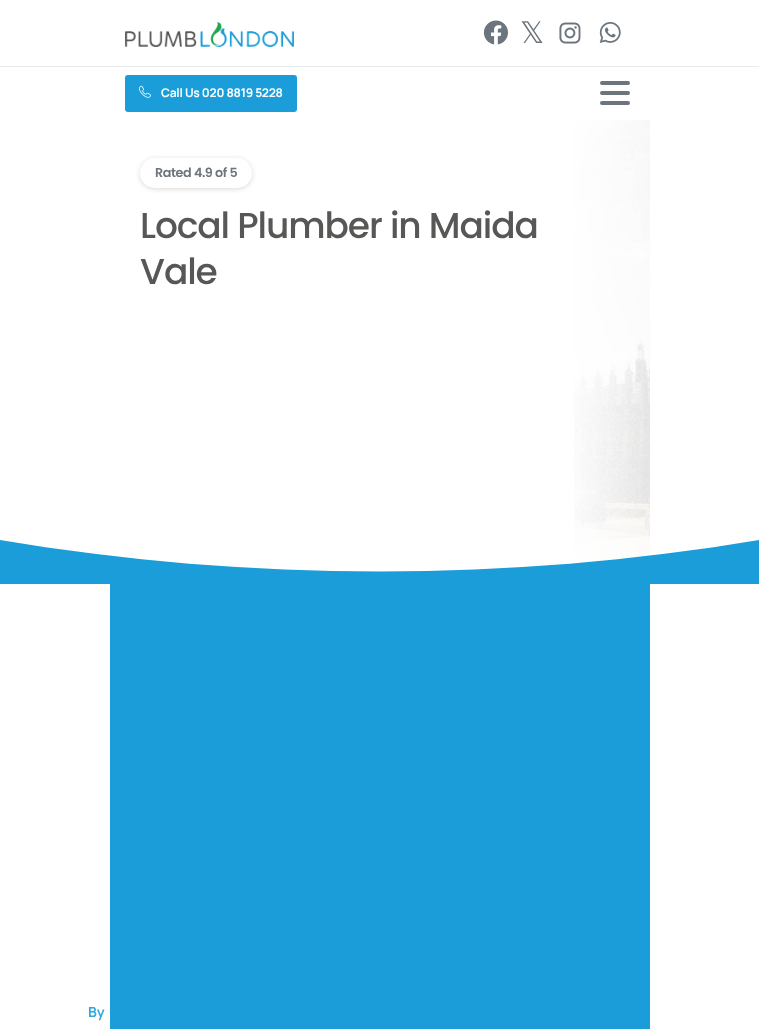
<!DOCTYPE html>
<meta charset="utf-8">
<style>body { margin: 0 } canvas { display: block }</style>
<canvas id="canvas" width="759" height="1029"></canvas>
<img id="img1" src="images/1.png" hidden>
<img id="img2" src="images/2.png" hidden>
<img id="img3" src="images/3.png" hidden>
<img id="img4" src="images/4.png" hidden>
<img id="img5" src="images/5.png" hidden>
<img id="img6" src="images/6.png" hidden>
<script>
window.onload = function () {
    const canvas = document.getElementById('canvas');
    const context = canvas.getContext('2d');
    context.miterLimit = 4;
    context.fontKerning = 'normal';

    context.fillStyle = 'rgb(255, 255, 255)';
    context.fillRect(0, 0, 759, 1029);
    context.drawImage(document.getElementById('img1'), 125, 22, 169, 25);
    context.drawImage(document.getElementById('img2'), 483, 20, 25, 25);
    context.drawImage(document.getElementById('img3'), 559, 22, 22, 22);
    context.drawImage(document.getElementById('img4'), 599, 22, 22, 21);
    context.fillStyle = 'rgb(233, 236, 239)';
    context.fillRect(0, 66, 759, 1);
    context.fillStyle = 'rgb(26, 157, 217)';
    context.beginPath();
    context.roundRect(125, 75, 172, 37, 3);
    context.fill();
    context.drawImage(document.getElementById('img5'), 139, 85, 12, 13);
    context.fillStyle = 'rgb(108, 117, 125)';
    context.beginPath();
    context.roundRect(600, 91, 30, 4, 2);
    context.fill();
    context.beginPath();
    context.roundRect(600, 81, 30, 4, 2);
    context.fill();
    context.beginPath();
    context.roundRect(600, 101, 30, 4, 2);
    context.fill();
    context.drawImage(document.getElementById('img6'), 574, 120, 76, 444);
    context.fillStyle = 'rgba(0, 0, 0, 0.15)';
    context.filter = 'blur(2.5px)';
    context.beginPath();
    context.roundRect(140, 159, 112, 30, 15);
    context.fill();
    context.filter = 'none';
    context.fillStyle = 'rgb(255, 255, 255)';
    context.beginPath();
    context.roundRect(140, 158, 112, 30, 15);
    context.fill();
    context.save();
    context.beginPath();
    context.rect(0, 502, 759, 82);
    context.clip();
    context.fillStyle = 'rgba(255, 255, 255, 0.3)';
    context.beginPath();
    context.moveTo(0, 584);
    context.lineTo(0, 501);
    context.bezierCurveTo(251, 543, 508, 543, 759, 501);
    context.lineTo(759, 584);
    context.closePath();
    context.fill();
    context.restore();
    context.fillStyle = 'rgba(255, 255, 255, 0.6)';
    context.beginPath();
    context.moveTo(0, 584);
    context.lineTo(0, 520);
    context.bezierCurveTo(251, 562, 508, 562, 759, 520);
    context.lineTo(759, 584);
    context.closePath();
    context.fill();
    context.fillStyle = 'rgb(26, 157, 217)';
    context.beginPath();
    context.moveTo(0, 584);
    context.lineTo(0, 540);
    context.bezierCurveTo(251, 582, 508, 582, 759, 540);
    context.lineTo(759, 584);
    context.closePath();
    context.fill();
    context.fillRect(110, 584, 540, 445);
    context.letterSpacing = '-0.2px';
    context.font = '30px DejaVu Sans';
    context.fillStyle = 'rgb(108, 117, 125)';
    context.fillText('𝕏', 520, 43);
    context.font = 'bold 12px Manrope';
    context.fillStyle = 'rgb(255, 255, 255)';
    context.fillText('Call Us 020 8819 5228', 161, 97);
    context.letterSpacing = '-0.4px';
    context.font = '600 12.75px Poppins';
    context.fillStyle = 'rgb(108, 117, 125)';
    context.fillText('Rated 4.9 of 5', 155, 177);
    context.letterSpacing = '-1.1px';
    context.font = '500 36px Poppins';
    context.fillStyle = 'rgb(87, 87, 86)';
    context.fillText('Local Plumber in Maida', 140, 238);
    context.fillText('Vale', 140, 284);
    context.letterSpacing = '-0.2px';
    context.font = 'bold 14px Manrope';
    context.fillStyle = 'rgb(49, 167, 221)';
    context.fillText('By', 88, 1017);
};
</script>
